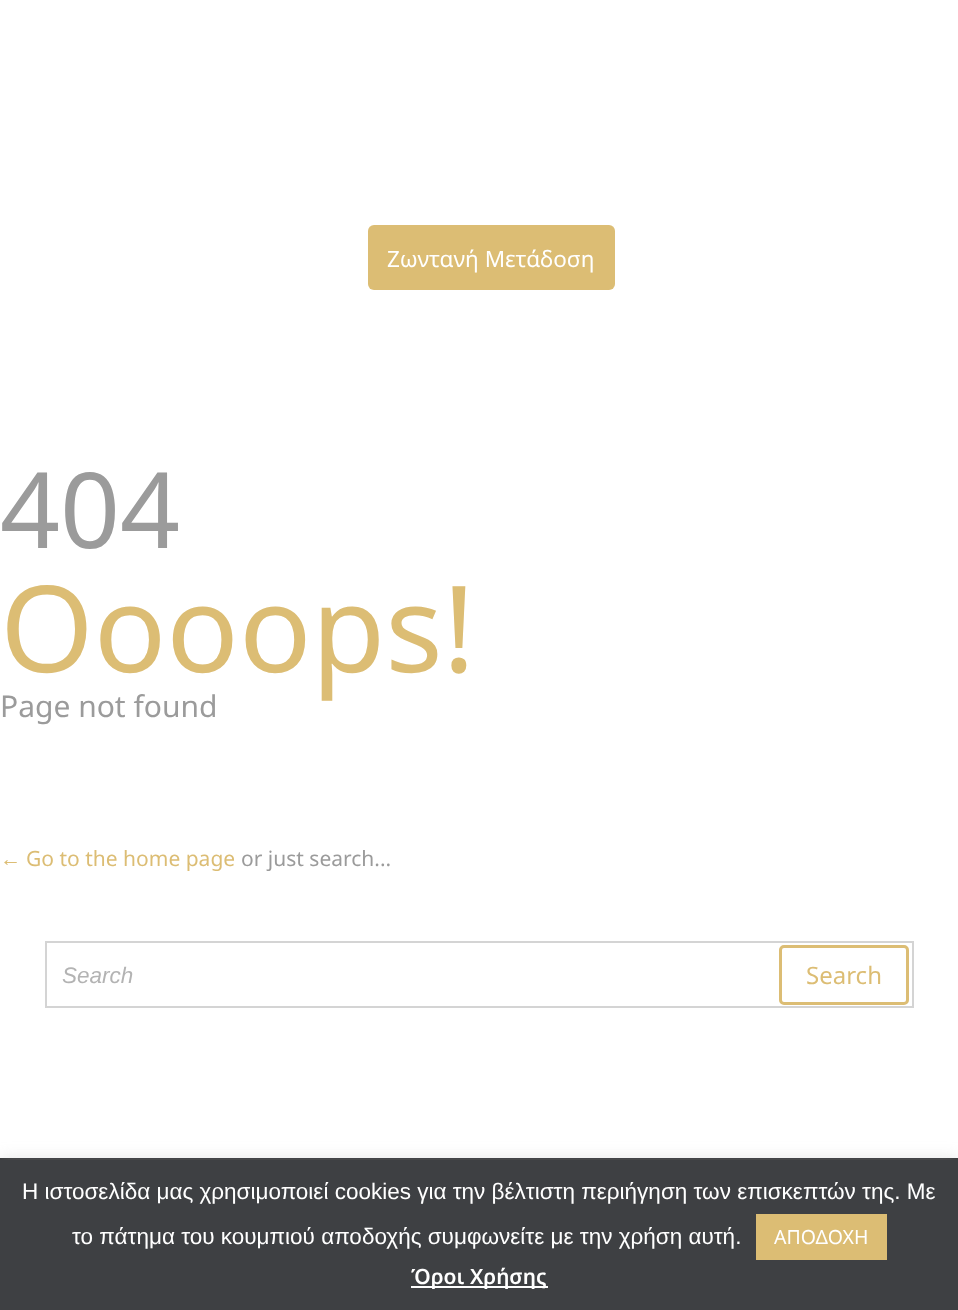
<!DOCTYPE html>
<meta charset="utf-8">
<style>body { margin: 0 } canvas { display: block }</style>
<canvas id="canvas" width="958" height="1310"></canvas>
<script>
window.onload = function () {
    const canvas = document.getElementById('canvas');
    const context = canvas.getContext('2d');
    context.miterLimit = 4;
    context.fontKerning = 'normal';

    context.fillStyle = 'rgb(255, 255, 255)';
    context.fillRect(0, 0, 958, 1310);
    context.fillStyle = 'rgb(220, 189, 116)';
    context.beginPath();
    context.roundRect(368, 225, 247, 65, 6);
    context.fill();
    context.strokeStyle = 'rgb(212, 212, 212)';
    context.lineWidth = 2;
    context.strokeRect(46, 942, 867, 65);
    context.beginPath();
    context.roundRect(780.5, 946.5, 127, 57, 3.5);
    context.strokeStyle = 'rgb(220, 189, 116)';
    context.lineWidth = 3;
    context.stroke();
    context.fillStyle = 'rgb(50, 51, 54)';
    context.fillRect(0, 1158, 958, 2);
    context.fillStyle = 'rgba(172, 171, 171, 0.3)';
    context.filter = 'blur(7.5px)';
    context.beginPath();
    context.rect(0, 1158, 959, 152);
    context.fill();
    context.filter = 'none';
    context.fillStyle = 'rgb(62, 64, 67)';
    context.fillRect(0, 1160, 958, 150);
    context.fillStyle = 'rgb(220, 189, 116)';
    context.fillRect(756, 1214, 131, 46);
    context.fillStyle = 'rgb(255, 255, 255)';
    context.fillRect(411, 1286, 137, 2);
    context.font = '22.5px Noto Sans';
    context.fillText('Ζωντανή Μετάδοση', 387, 267);
    context.font = '105px Noto Sans';
    context.fillStyle = 'rgb(155, 155, 155)';
    context.fillText('404', 0, 548);
    context.font = '120px Noto Sans';
    context.fillStyle = 'rgb(220, 189, 116)';
    context.fillText('Oooops!', 0, 672);
    context.font = '30px Noto Sans';
    context.fillStyle = 'rgb(155, 155, 155)';
    context.fillText('Page not found', 0, 717);
    context.font = '21px Liberation Sans';
    context.fillStyle = 'rgb(220, 189, 116)';
    context.fillText('←', 0, 866);
    context.font = '21px Noto Sans';
    context.fillText('Go to the home page', 26, 866);
    context.fillStyle = 'rgb(155, 155, 155)';
    context.fillText('or just search...', 241, 866);
    context.font = 'italic 22.5px Liberation Sans';
    context.fillStyle = 'rgb(179, 179, 179)';
    context.fillText('Search', 62, 983);
    context.font = '24px Noto Sans';
    context.fillStyle = 'rgb(220, 189, 116)';
    context.fillText('Search', 806, 984);
    context.font = '22.5px Liberation Sans';
    context.fillStyle = 'rgb(255, 255, 255)';
    context.fillText('Η ιστοσελίδα μας χρησιμοποιεί cookies για την βέλτιστη περιήγηση των επισκεπτών της. Με', 22, 1199);
    context.fillText('το πάτημα του κουμπιού αποδοχής συμφωνείτε με την χρήση αυτή.', 72, 1244);
    context.font = '19.5px Noto Sans';
    context.fillText('ΑΠΟΔΟΧΗ', 774, 1244);
    context.font = '600 21px Noto Sans';
    context.fillText('Όροι Χρήσης', 411, 1284);
};
</script>
